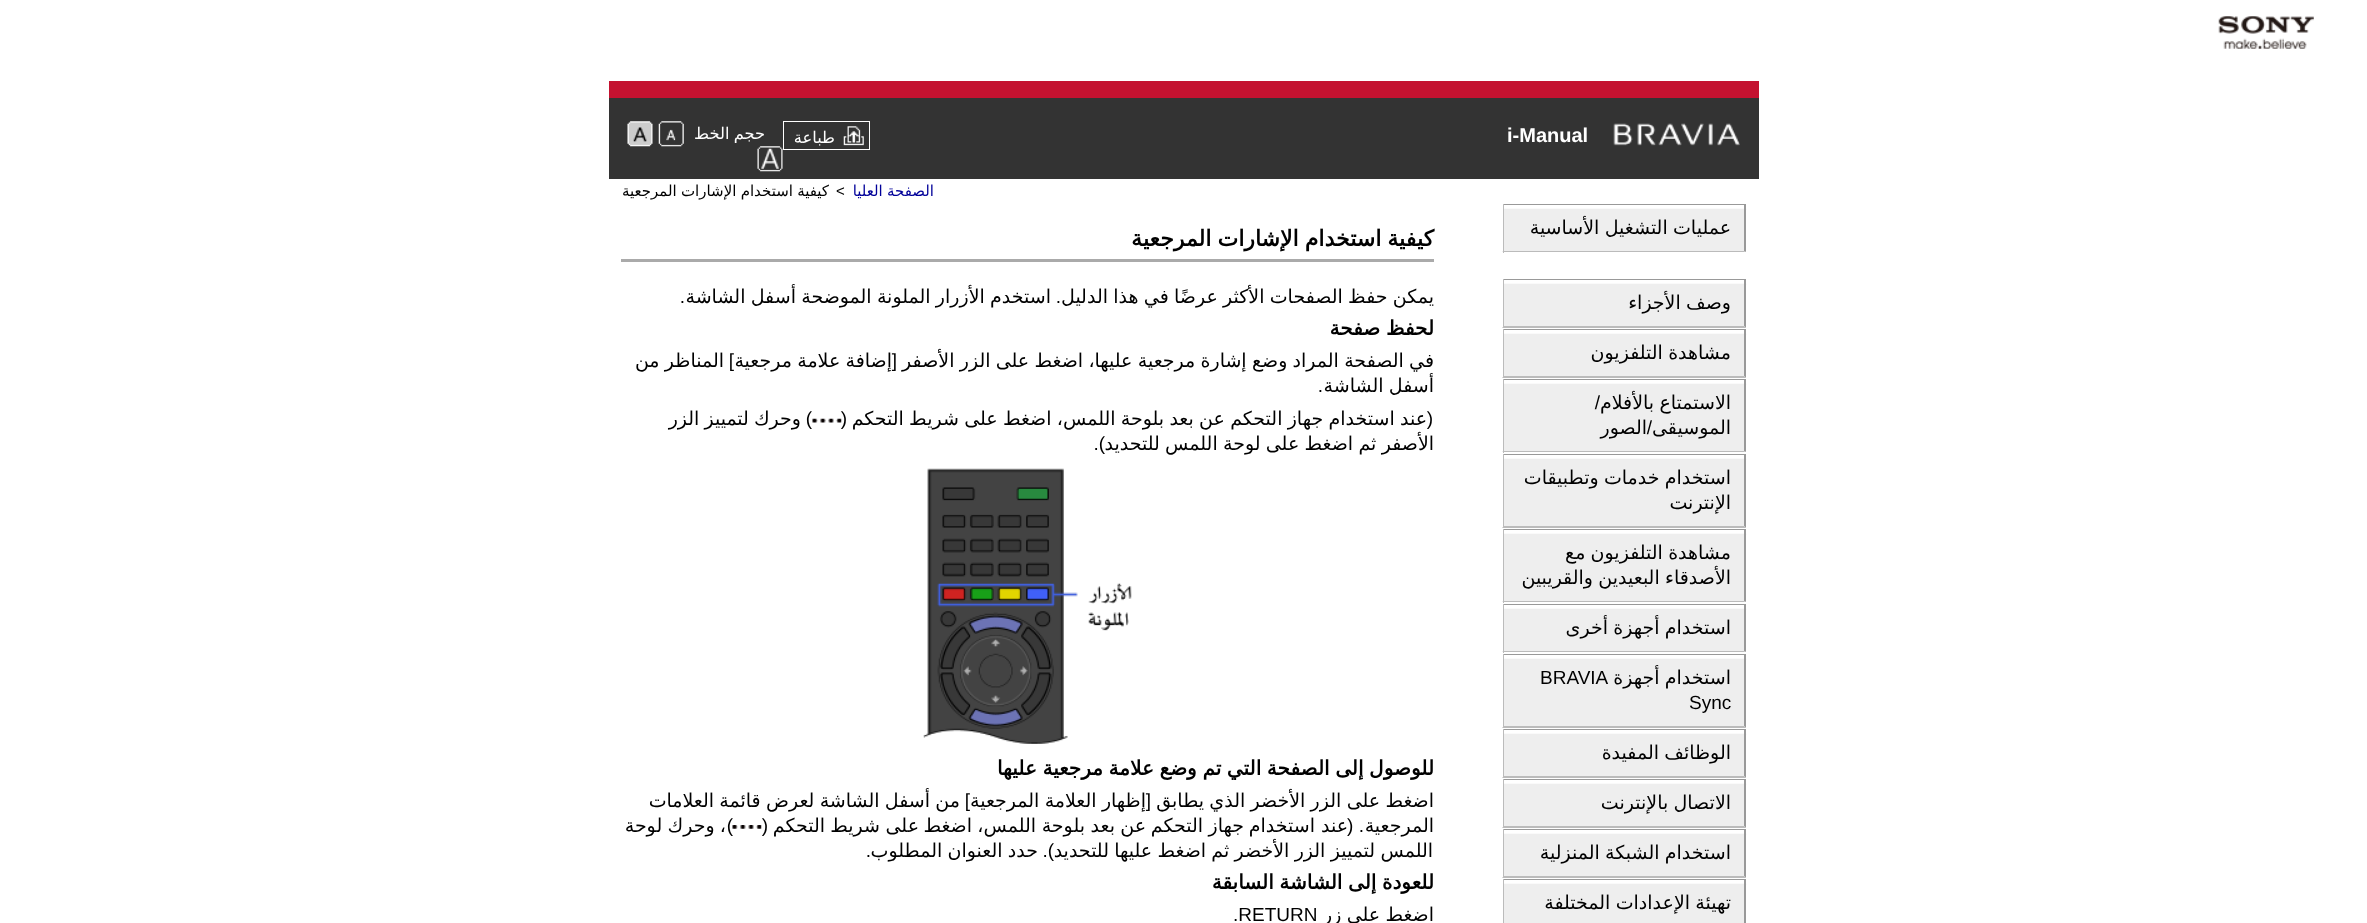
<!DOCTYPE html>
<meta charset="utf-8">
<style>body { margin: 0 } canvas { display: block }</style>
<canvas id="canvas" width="2367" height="923"></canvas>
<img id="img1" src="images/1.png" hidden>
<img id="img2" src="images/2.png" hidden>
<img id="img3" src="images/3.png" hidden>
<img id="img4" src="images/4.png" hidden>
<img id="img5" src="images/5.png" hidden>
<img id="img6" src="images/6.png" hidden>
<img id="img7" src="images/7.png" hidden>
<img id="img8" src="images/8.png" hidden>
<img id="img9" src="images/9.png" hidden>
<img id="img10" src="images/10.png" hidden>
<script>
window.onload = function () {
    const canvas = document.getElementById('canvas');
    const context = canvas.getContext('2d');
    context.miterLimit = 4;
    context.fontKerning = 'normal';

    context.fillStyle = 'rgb(255, 255, 255)';
    context.fillRect(0, 0, 2367, 923);
    context.drawImage(document.getElementById('img1'), 2218, 16, 96, 33);
    context.fillStyle = 'rgb(51, 51, 51)';
    context.fillRect(609, 98, 1150, 81);
    context.fillStyle = 'rgb(196, 18, 48)';
    context.fillRect(609, 81, 1150, 17);
    context.drawImage(document.getElementById('img2'), 1613, 123, 127, 23);
    context.drawImage(document.getElementById('img3'), 843, 126, 21, 20);
    context.strokeStyle = 'rgb(255, 255, 255)';
    context.strokeRect(783.5, 121.5, 86, 28);
    context.drawImage(document.getElementById('img4'), 658, 121, 26, 26);
    context.drawImage(document.getElementById('img5'), 627, 121, 26, 26);
    context.drawImage(document.getElementById('img6'), 757, 146, 26, 26);
    context.fillStyle = 'rgb(238, 238, 238)';
    context.fillRect(1504, 210, 240, 41);
    context.drawImage(document.getElementById('img7'), 1504, 205, 243, 5);
    context.fillStyle = 'rgb(153, 153, 153)';
    context.fillRect(1503, 204, 243, 1);
    context.beginPath();
    context.moveTo(1746, 204);
    context.lineTo(1746, 252);
    context.lineTo(1744, 251);
    context.lineTo(1744, 205);
    context.closePath();
    context.fill();
    context.fillStyle = 'rgb(187, 187, 187)';
    context.beginPath();
    context.moveTo(1746, 252);
    context.lineTo(1502, 252);
    context.lineTo(1504, 251);
    context.lineTo(1744, 251);
    context.closePath();
    context.fill();
    context.fillRect(1503, 204, 1, 49);
    context.fillStyle = 'rgb(238, 238, 238)';
    context.fillRect(1504, 285, 240, 41);
    context.drawImage(document.getElementById('img7'), 1504, 280, 243, 5);
    context.fillStyle = 'rgb(153, 153, 153)';
    context.fillRect(1503, 279, 243, 1);
    context.beginPath();
    context.moveTo(1746, 279);
    context.lineTo(1746, 328);
    context.lineTo(1744, 326);
    context.lineTo(1744, 280);
    context.closePath();
    context.fill();
    context.fillStyle = 'rgb(187, 187, 187)';
    context.beginPath();
    context.moveTo(1746, 328);
    context.lineTo(1502, 328);
    context.lineTo(1504, 326);
    context.lineTo(1744, 326);
    context.closePath();
    context.fill();
    context.fillRect(1503, 279, 1, 49);
    context.fillStyle = 'rgb(238, 238, 238)';
    context.fillRect(1504, 335, 240, 41);
    context.drawImage(document.getElementById('img7'), 1504, 330, 243, 5);
    context.fillStyle = 'rgb(153, 153, 153)';
    context.fillRect(1503, 329, 243, 1);
    context.beginPath();
    context.moveTo(1746, 329);
    context.lineTo(1746, 378);
    context.lineTo(1744, 376);
    context.lineTo(1744, 330);
    context.closePath();
    context.fill();
    context.fillStyle = 'rgb(187, 187, 187)';
    context.beginPath();
    context.moveTo(1746, 378);
    context.lineTo(1502, 378);
    context.lineTo(1504, 376);
    context.lineTo(1744, 376);
    context.closePath();
    context.fill();
    context.fillRect(1503, 329, 1, 49);
    context.fillStyle = 'rgb(238, 238, 238)';
    context.fillRect(1504, 385, 240, 66);
    context.drawImage(document.getElementById('img7'), 1504, 380, 243, 5);
    context.fillStyle = 'rgb(153, 153, 153)';
    context.fillRect(1503, 379, 243, 1);
    context.beginPath();
    context.moveTo(1746, 379);
    context.lineTo(1746, 452);
    context.lineTo(1744, 451);
    context.lineTo(1744, 380);
    context.closePath();
    context.fill();
    context.fillStyle = 'rgb(187, 187, 187)';
    context.beginPath();
    context.moveTo(1746, 452);
    context.lineTo(1502, 452);
    context.lineTo(1504, 451);
    context.lineTo(1744, 451);
    context.closePath();
    context.fill();
    context.fillRect(1503, 379, 1, 74);
    context.fillStyle = 'rgb(238, 238, 238)';
    context.fillRect(1504, 460, 240, 66);
    context.drawImage(document.getElementById('img7'), 1504, 455, 243, 5);
    context.fillStyle = 'rgb(153, 153, 153)';
    context.fillRect(1503, 454, 243, 1);
    context.beginPath();
    context.moveTo(1746, 454);
    context.lineTo(1746, 528);
    context.lineTo(1744, 526);
    context.lineTo(1744, 455);
    context.closePath();
    context.fill();
    context.fillStyle = 'rgb(187, 187, 187)';
    context.beginPath();
    context.moveTo(1746, 528);
    context.lineTo(1502, 528);
    context.lineTo(1504, 526);
    context.lineTo(1744, 526);
    context.closePath();
    context.fill();
    context.fillRect(1503, 454, 1, 74);
    context.fillStyle = 'rgb(238, 238, 238)';
    context.fillRect(1504, 535, 240, 66);
    context.drawImage(document.getElementById('img7'), 1504, 530, 243, 5);
    context.fillStyle = 'rgb(153, 153, 153)';
    context.fillRect(1503, 529, 243, 1);
    context.beginPath();
    context.moveTo(1746, 529);
    context.lineTo(1746, 602);
    context.lineTo(1744, 601);
    context.lineTo(1744, 530);
    context.closePath();
    context.fill();
    context.fillStyle = 'rgb(187, 187, 187)';
    context.beginPath();
    context.moveTo(1746, 602);
    context.lineTo(1502, 602);
    context.lineTo(1504, 601);
    context.lineTo(1744, 601);
    context.closePath();
    context.fill();
    context.fillRect(1503, 529, 1, 74);
    context.fillStyle = 'rgb(238, 238, 238)';
    context.fillRect(1504, 610, 240, 41);
    context.drawImage(document.getElementById('img7'), 1504, 605, 243, 5);
    context.fillStyle = 'rgb(153, 153, 153)';
    context.fillRect(1503, 604, 243, 1);
    context.beginPath();
    context.moveTo(1746, 604);
    context.lineTo(1746, 652);
    context.lineTo(1744, 651);
    context.lineTo(1744, 605);
    context.closePath();
    context.fill();
    context.fillStyle = 'rgb(187, 187, 187)';
    context.beginPath();
    context.moveTo(1746, 652);
    context.lineTo(1502, 652);
    context.lineTo(1504, 651);
    context.lineTo(1744, 651);
    context.closePath();
    context.fill();
    context.fillRect(1503, 604, 1, 49);
    context.fillStyle = 'rgb(238, 238, 238)';
    context.fillRect(1504, 660, 240, 66);
    context.drawImage(document.getElementById('img7'), 1504, 655, 243, 5);
    context.fillStyle = 'rgb(153, 153, 153)';
    context.fillRect(1503, 654, 243, 1);
    context.beginPath();
    context.moveTo(1746, 654);
    context.lineTo(1746, 728);
    context.lineTo(1744, 726);
    context.lineTo(1744, 655);
    context.closePath();
    context.fill();
    context.fillStyle = 'rgb(187, 187, 187)';
    context.beginPath();
    context.moveTo(1746, 728);
    context.lineTo(1502, 728);
    context.lineTo(1504, 726);
    context.lineTo(1744, 726);
    context.closePath();
    context.fill();
    context.fillRect(1503, 654, 1, 74);
    context.fillStyle = 'rgb(238, 238, 238)';
    context.fillRect(1504, 735, 240, 41);
    context.drawImage(document.getElementById('img7'), 1504, 730, 243, 5);
    context.fillStyle = 'rgb(153, 153, 153)';
    context.fillRect(1503, 729, 243, 1);
    context.beginPath();
    context.moveTo(1746, 729);
    context.lineTo(1746, 778);
    context.lineTo(1744, 776);
    context.lineTo(1744, 730);
    context.closePath();
    context.fill();
    context.fillStyle = 'rgb(187, 187, 187)';
    context.beginPath();
    context.moveTo(1746, 778);
    context.lineTo(1502, 778);
    context.lineTo(1504, 776);
    context.lineTo(1744, 776);
    context.closePath();
    context.fill();
    context.fillRect(1503, 729, 1, 49);
    context.fillStyle = 'rgb(238, 238, 238)';
    context.fillRect(1504, 785, 240, 41);
    context.drawImage(document.getElementById('img7'), 1504, 780, 243, 5);
    context.fillStyle = 'rgb(153, 153, 153)';
    context.fillRect(1503, 779, 243, 1);
    context.beginPath();
    context.moveTo(1746, 779);
    context.lineTo(1746, 828);
    context.lineTo(1744, 826);
    context.lineTo(1744, 780);
    context.closePath();
    context.fill();
    context.fillStyle = 'rgb(187, 187, 187)';
    context.beginPath();
    context.moveTo(1746, 828);
    context.lineTo(1502, 828);
    context.lineTo(1504, 826);
    context.lineTo(1744, 826);
    context.closePath();
    context.fill();
    context.fillRect(1503, 779, 1, 49);
    context.fillStyle = 'rgb(238, 238, 238)';
    context.fillRect(1504, 835, 240, 41);
    context.drawImage(document.getElementById('img7'), 1504, 830, 243, 5);
    context.fillStyle = 'rgb(153, 153, 153)';
    context.fillRect(1503, 829, 243, 1);
    context.beginPath();
    context.moveTo(1746, 829);
    context.lineTo(1746, 878);
    context.lineTo(1744, 876);
    context.lineTo(1744, 830);
    context.closePath();
    context.fill();
    context.fillStyle = 'rgb(187, 187, 187)';
    context.beginPath();
    context.moveTo(1746, 878);
    context.lineTo(1502, 878);
    context.lineTo(1504, 876);
    context.lineTo(1744, 876);
    context.closePath();
    context.fill();
    context.fillRect(1503, 829, 1, 49);
    context.fillStyle = 'rgb(238, 238, 238)';
    context.fillRect(1504, 885, 240, 38);
    context.drawImage(document.getElementById('img7'), 1504, 880, 243, 5);
    context.fillStyle = 'rgb(153, 153, 153)';
    context.fillRect(1503, 879, 243, 1);
    context.beginPath();
    context.moveTo(1746, 879);
    context.lineTo(1746, 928);
    context.lineTo(1744, 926);
    context.lineTo(1744, 880);
    context.closePath();
    context.fill();
    context.fillStyle = 'rgb(187, 187, 187)';
    context.fillRect(1503, 879, 1, 44);
    context.fillStyle = 'rgb(170, 170, 170)';
    context.fillRect(621, 259, 813, 3);
    context.drawImage(document.getElementById('img8'), 812, 418, 30, 5);
    context.drawImage(document.getElementById('img9'), 923, 468, 209, 276);
    context.drawImage(document.getElementById('img10'), 732, 825, 30, 4);
    context.font = 'bold 20px Liberation Sans';
    context.fillStyle = 'rgb(255, 255, 255)';
    context.fillText('i-Manual', 1507, 142);
    context.direction = 'rtl';
    context.font = '16.25px DejaVu Sans';
    context.fillText('طباعة', 835, 143);
    context.wordSpacing = '-1px';
    context.fillText('حجم الخط', 765, 139);
    context.wordSpacing = '-0.75px';
    context.font = '19px DejaVu Sans';
    context.fillStyle = 'rgb(0, 0, 0)';
    context.fillText('عمليات التشغيل الأساسية', 1731, 234);
    context.fillText('وصف الأجزاء', 1731, 309);
    context.fillText('مشاهدة التلفزيون', 1731, 359);
    context.fillText('الاستمتاع بالأفلام', 1731, 409);
    context.wordSpacing = '0px';
    context.font = '19px Liberation Sans';
    context.fillText('/', 1600, 409);
    context.font = '19px DejaVu Sans';
    context.fillText('الموسيقى', 1731, 434);
    context.font = '19px Liberation Sans';
    context.fillText('/', 1652, 434);
    context.font = '19px DejaVu Sans';
    context.fillText('الصور', 1647, 434);
    context.wordSpacing = '-0.75px';
    context.fillText('استخدام خدمات وتطبيقات', 1731, 484);
    context.wordSpacing = '0px';
    context.fillText('الإنترنت', 1731, 509);
    context.wordSpacing = '-0.75px';
    context.fillText('مشاهدة التلفزيون مع', 1731, 559);
    context.fillText('الأصدقاء البعيدين والقريبين', 1731, 584);
    context.fillText('استخدام أجهزة أخرى', 1731, 634);
    context.fillText('استخدام أجهزة', 1731, 684);
    context.wordSpacing = '0px';
    context.direction = 'ltr';
    context.font = '19px Liberation Sans';
    context.fillText('BRAVIA', 1540, 684);
    context.fillText('Sync', 1689, 709);
    context.wordSpacing = '-0.75px';
    context.direction = 'rtl';
    context.font = '19px DejaVu Sans';
    context.fillText('الوظائف المفيدة', 1731, 759);
    context.fillText('الاتصال بالإنترنت', 1731, 809);
    context.fillText('استخدام الشبكة المنزلية', 1731, 859);
    context.fillText('تهيئة الإعدادات المختلفة', 1731, 909);
    context.wordSpacing = '-0.5px';
    context.font = '15px DejaVu Sans';
    context.fillStyle = 'rgb(0, 0, 153)';
    context.fillText('الصفحة العليا', 934, 196);
    context.wordSpacing = '0px';
    context.font = '15px Liberation Sans';
    context.fillStyle = 'rgb(0, 0, 0)';
    context.fillText(' >', 849, 196);
    context.wordSpacing = '-0.5px';
    context.font = '15px DejaVu Sans';
    context.fillText('كيفية استخدام الإشارات المرجعية', 829, 196);
    context.wordSpacing = '-1px';
    context.font = 'bold 22px DejaVu Sans';
    context.fillText('كيفية استخدام الإشارات المرجعية', 1434, 246);
    context.wordSpacing = '-0.75px';
    context.font = '19px DejaVu Sans';
    context.fillText('يمكن حفظ الصفحات الأكثر عرضًا في هذا الدليل', 1434, 303);
    context.wordSpacing = '0px';
    context.font = '19px Liberation Sans';
    context.fillText('.', 1061, 303);
    context.wordSpacing = '-0.75px';
    context.font = '19px DejaVu Sans';
    context.fillText('استخدم الأزرار الملونة الموضحة أسفل الشاشة', 1051, 303);
    context.wordSpacing = '0px';
    context.font = '19px Liberation Sans';
    context.fillText('.', 685, 303);
    context.wordSpacing = '-0.75px';
    context.font = 'bold 20px DejaVu Sans';
    context.fillText('لحفظ صفحة', 1434, 335);
    context.font = '19px DejaVu Sans';
    context.fillText('في الصفحة المراد وضع إشارة مرجعية عليها، اضغط على الزر الأصفر', 1434, 367);
    context.wordSpacing = '0px';
    context.font = '19px Liberation Sans';
    context.fillText('[', 897, 367);
    context.wordSpacing = '-0.75px';
    context.font = '19px DejaVu Sans';
    context.fillText('إضافة علامة مرجعية', 892, 367);
    context.wordSpacing = '0px';
    context.font = '19px Liberation Sans';
    context.fillText(']', 734, 367);
    context.wordSpacing = '-0.75px';
    context.font = '19px DejaVu Sans';
    context.fillText('المناظر من', 724, 367);
    context.fillText('أسفل الشاشة', 1434, 392);
    context.wordSpacing = '0px';
    context.font = '19px Liberation Sans';
    context.fillText('.', 1323, 392);
    context.wordSpacing = '-0.75px';
    context.font = '19px DejaVu Sans';
    context.fillText('عند استخدام جهاز التحكم عن بعد بلوحة اللمس، اضغط على شريط التحكم', 1427, 425);
    context.wordSpacing = '0px';
    context.font = '19px Liberation Sans';
    context.fillText('(', 847, 425);
    context.fillText(')', 812, 425);
    context.wordSpacing = '-1px';
    context.font = '19px DejaVu Sans';
    context.fillText('وحرك لتمييز الزر', 801, 425);
    context.wordSpacing = '0px';
    context.font = '19px Liberation Sans';
    context.fillText('(', 1433, 425);
    context.wordSpacing = '-0.75px';
    context.font = '19px DejaVu Sans';
    context.fillText('الأصفر ثم اضغط على لوحة اللمس للتحديد', 1434, 450);
    context.wordSpacing = '0px';
    context.font = '19px Liberation Sans';
    context.fillText(').', 1105, 450);
    context.wordSpacing = '-0.75px';
    context.font = 'bold 20px DejaVu Sans';
    context.fillText('للوصول إلى الصفحة التي تم وضع علامة مرجعية عليها', 1434, 775);
    context.font = '19px DejaVu Sans';
    context.fillText('اضغط على الزر الأخضر الذي يطابق', 1434, 807);
    context.wordSpacing = '0px';
    context.font = '19px Liberation Sans';
    context.fillText('[', 1151, 807);
    context.wordSpacing = '-0.75px';
    context.font = '19px DejaVu Sans';
    context.fillText('إظهار العلامة المرجعية', 1146, 807);
    context.wordSpacing = '0px';
    context.font = '19px Liberation Sans';
    context.fillText(']', 970, 807);
    context.wordSpacing = '-0.75px';
    context.font = '19px DejaVu Sans';
    context.fillText('من أسفل الشاشة لعرض قائمة العلامات', 960, 807);
    context.wordSpacing = '0px';
    context.fillText('المرجعية', 1434, 832);
    context.font = '19px Liberation Sans';
    context.fillText('. (', 1364, 832);
    context.font = '19px DejaVu Sans';
    context.fillText('عند', 1348, 832);
    context.fillText('استخدام', 1315, 832);
    context.fillText('جهاز', 1244, 832);
    context.fillText('التحكم', 1203, 832);
    context.fillText('عن', 1146, 832);
    context.fillText('بعد', 1115, 832);
    context.fillText('بلوحة', 1085, 832);
    context.fillText('اللمس،', 1036, 832);
    context.fillText('اضغط', 972, 832);
    context.fillText('على', 919, 832);
    context.fillText('شريط', 880, 832);
    context.fillText('التحكم', 825, 832);
    context.font = '19px Liberation Sans';
    context.fillText('(', 768, 832);
    context.wordSpacing = '-0.75px';
    context.font = '19px DejaVu Sans';
    context.fillText('، وحرك لوحة', 726, 832);
    context.wordSpacing = '0px';
    context.font = '19px Liberation Sans';
    context.fillText(')', 733, 832);
    context.wordSpacing = '-0.75px';
    context.font = '19px DejaVu Sans';
    context.fillText('اللمس لتمييز الزر الأخضر ثم اضغط عليها للتحديد', 1433, 857);
    context.wordSpacing = '0px';
    context.font = '19px Liberation Sans';
    context.fillText(').', 1054, 857);
    context.wordSpacing = '-0.75px';
    context.font = '19px DejaVu Sans';
    context.fillText('حدد العنوان المطلوب', 1038, 857);
    context.wordSpacing = '0px';
    context.font = '19px Liberation Sans';
    context.fillText('.', 871, 857);
    context.wordSpacing = '-0.75px';
    context.font = 'bold 20px DejaVu Sans';
    context.fillText('للعودة إلى الشاشة السابقة', 1434, 889);
    context.font = '19px DejaVu Sans';
    context.fillText('اضغط على زر', 1434, 921);
    context.wordSpacing = '0px';
    context.direction = 'ltr';
    context.font = '19px Liberation Sans';
    context.fillText('.RETURN', 1233, 921);
};
</script>
